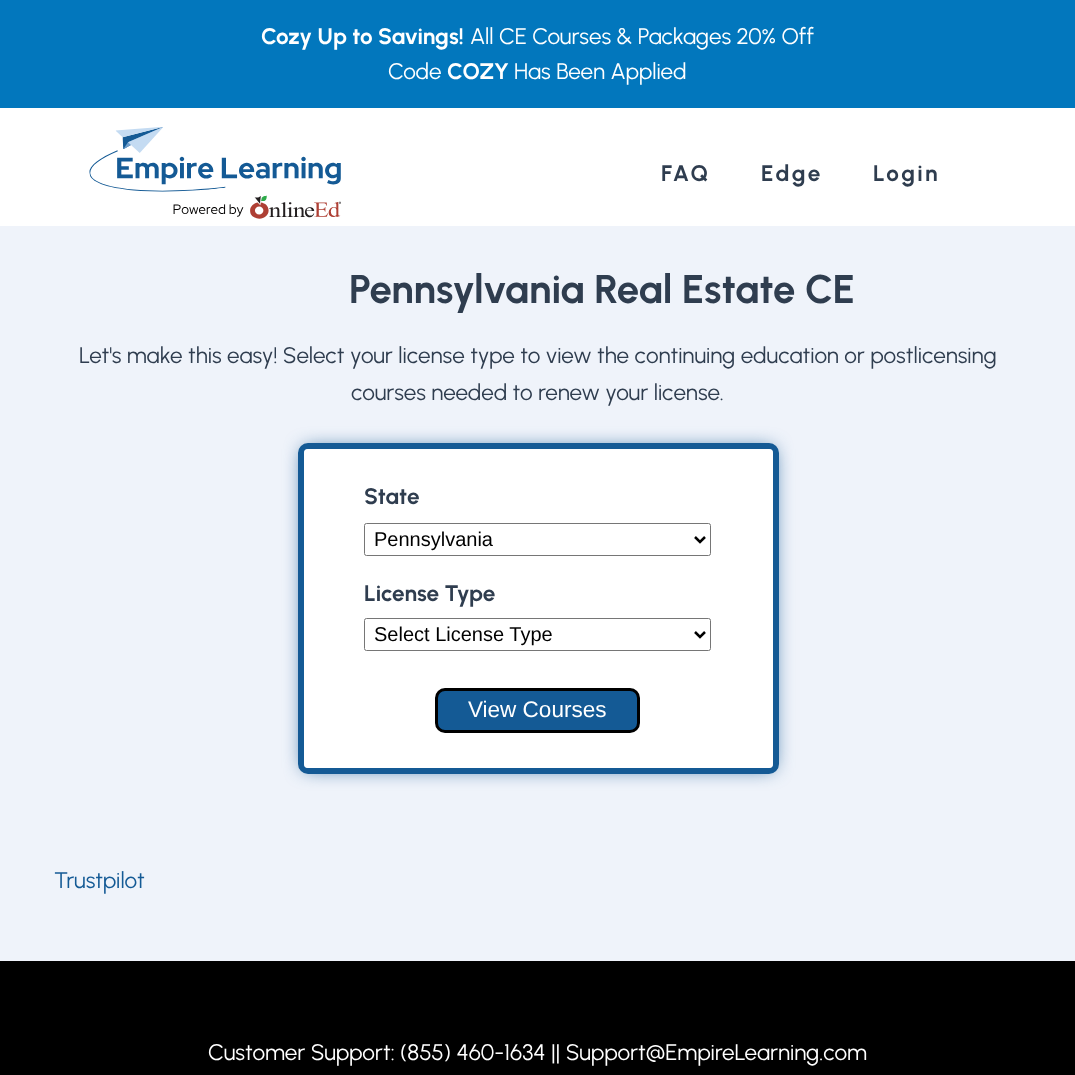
<!DOCTYPE html>
<meta charset="utf-8">
<style>body { margin: 0 } canvas { display: block }</style>
<canvas id="canvas" width="1075" height="1075"></canvas>
<img id="img1" src="images/1.png" hidden>
<script>
window.onload = function () {
    const canvas = document.getElementById('canvas');
    const context = canvas.getContext('2d');
    context.miterLimit = 4;
    context.fontKerning = 'normal';

    context.fillStyle = 'rgb(255, 255, 255)';
    context.fillRect(0, 0, 1075, 1075);
    context.fillStyle = 'rgb(2, 119, 189)';
    context.fillRect(0, 0, 1075, 108);
    context.drawImage(document.getElementById('img1'), 89, 127, 252, 92);
    context.fillStyle = 'rgb(239, 243, 250)';
    context.fillRect(0, 226, 1075, 735);
    context.fillStyle = 'rgb(20, 90, 149)';
    context.filter = 'blur(9.5px)';
    context.beginPath();
    context.rect(304, 449, 469, 319);
    context.fill();
    context.filter = 'none';
    context.beginPath();
    context.roundRect(301, 446, 475, 325, 7);
    context.strokeStyle = 'rgb(20, 90, 149)';
    context.lineWidth = 6;
    context.stroke();
    context.fillStyle = 'rgb(255, 255, 255)';
    context.beginPath();
    context.roundRect(304, 449, 469, 319, 4);
    context.fill();
    context.beginPath();
    context.roundRect(364.5, 523.5, 346, 32, 2);
    context.strokeStyle = 'rgb(118, 118, 118)';
    context.lineWidth = 1;
    context.stroke();
    context.beginPath();
    context.moveTo(695, 537);
    context.lineTo(700, 542);
    context.lineTo(705, 537);
    context.strokeStyle = 'rgb(0, 0, 0)';
    context.lineWidth = 2.5;
    context.stroke();
    context.beginPath();
    context.roundRect(364.5, 618.5, 346, 32, 2);
    context.strokeStyle = 'rgb(118, 118, 118)';
    context.lineWidth = 1;
    context.stroke();
    context.beginPath();
    context.moveTo(695, 632);
    context.lineTo(700, 637);
    context.lineTo(705, 632);
    context.strokeStyle = 'rgb(0, 0, 0)';
    context.lineWidth = 2.5;
    context.stroke();
    context.fillStyle = 'rgb(20, 90, 149)';
    context.beginPath();
    context.roundRect(436.5, 689.5, 202, 42, 8.5);
    context.fill();
    context.lineWidth = 3;
    context.stroke();
    context.fillStyle = 'rgb(0, 0, 0)';
    context.fillRect(0, 961, 1075, 114);
    context.font = 'bold 22.5px Urbanist';
    context.fillStyle = 'rgb(255, 255, 255)';
    context.fillText('Cozy Up to Savings!', 261, 44);
    context.font = '22.5px Urbanist';
    context.fillText('All CE Courses & Packages 20% Off', 470, 44);
    context.fillText('Code', 388, 79);
    context.font = 'bold 22.5px Urbanist';
    context.fillText('COZY', 447, 79);
    context.font = '22.5px Urbanist';
    context.fillText('Has Been Applied', 514, 79);
    context.letterSpacing = '2.5px';
    context.font = 'bold 22.5px Urbanist';
    context.fillStyle = 'rgb(47, 61, 79)';
    context.fillText('FAQ', 661, 181);
    context.fillText('Edge', 761, 181);
    context.fillText('Login', 873, 181);
    context.letterSpacing = '0px';
    context.font = 'bold 40px Urbanist';
    context.fillText('Pennsylvania Real Estate CE', 349, 303);
    context.font = '22.5px Urbanist';
    context.fillText('Let\'s make this easy! Select your license type to view the continuing education or postlicensing', 79, 363);
    context.fillText('courses needed to renew your license.', 351, 400);
    context.font = 'bold 22.5px Urbanist';
    context.fillText('State', 364, 504);
    context.font = '20px Liberation Sans';
    context.fillStyle = 'rgb(0, 0, 0)';
    context.fillText('Pennsylvania', 374, 546);
    context.font = 'bold 22.5px Urbanist';
    context.fillStyle = 'rgb(47, 61, 79)';
    context.fillText('License Type', 364, 601);
    context.font = '20px Liberation Sans';
    context.fillStyle = 'rgb(0, 0, 0)';
    context.fillText('Select License Type', 374, 641);
    context.font = '22.5px Liberation Sans';
    context.fillStyle = 'rgb(255, 255, 255)';
    context.fillText('View Courses', 468, 717);
    context.font = '22.5px Urbanist';
    context.fillStyle = 'rgb(20, 90, 149)';
    context.fillText('Trustpilot', 54, 888);
    context.fillStyle = 'rgb(255, 255, 255)';
    context.fillText('Customer Support: (855) 460-1634 || Support@EmpireLearning.com', 208, 1060);
};
</script>
